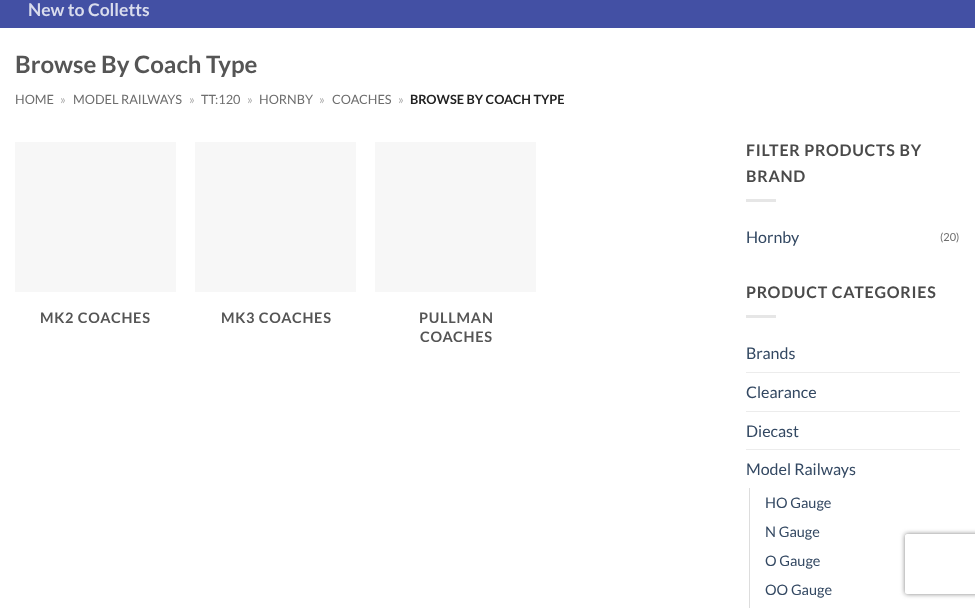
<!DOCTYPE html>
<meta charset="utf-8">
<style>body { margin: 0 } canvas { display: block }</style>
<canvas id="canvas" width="975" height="608"></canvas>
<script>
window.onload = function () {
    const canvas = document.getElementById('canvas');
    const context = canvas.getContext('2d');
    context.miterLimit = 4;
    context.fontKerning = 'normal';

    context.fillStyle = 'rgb(255, 255, 255)';
    context.fillRect(0, 0, 975, 608);
    context.fillStyle = 'rgb(67, 80, 164)';
    context.fillRect(0, 0, 975, 28);
    context.fillStyle = 'rgb(247, 247, 247)';
    context.fillRect(15, 142, 161, 150);
    context.fillRect(195, 142, 161, 150);
    context.fillRect(375, 142, 161, 150);
    context.fillStyle = 'rgb(230, 230, 230)';
    context.fillRect(746, 199, 30, 3);
    context.fillRect(746, 315, 30, 3);
    context.fillStyle = 'rgb(236, 236, 236)';
    context.fillRect(746, 372, 214, 1);
    context.fillRect(746, 411, 214, 1);
    context.fillRect(746, 449, 214, 1);
    context.fillStyle = 'rgb(221, 221, 221)';
    context.fillRect(749, 488, 1, 120);
    context.save();
    context.beginPath();
    context.moveTo(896, 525);
    context.lineTo(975, 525);
    context.lineTo(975, 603);
    context.lineTo(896, 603);
    context.closePath();
    context.moveTo(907, 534);
    context.lineTo(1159, 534);
    context.bezierCurveTo(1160, 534, 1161, 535, 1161, 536);
    context.lineTo(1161, 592);
    context.bezierCurveTo(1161, 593, 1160, 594, 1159, 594);
    context.lineTo(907, 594);
    context.bezierCurveTo(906, 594, 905, 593, 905, 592);
    context.lineTo(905, 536);
    context.bezierCurveTo(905, 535, 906, 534, 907, 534);
    context.closePath();
    context.clip('evenodd');
    context.fillStyle = 'rgb(128, 128, 128)';
    context.filter = 'blur(2.5px)';
    context.beginPath();
    context.roundRect(905, 534, 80, 60, 2);
    context.fill();
    context.filter = 'none';
    context.restore();
    context.font = 'bold 17.5px Lato';
    context.fillStyle = 'rgb(217, 220, 237)';
    context.fillText('New to Colletts', 28, 16);
    context.font = 'bold 24px Lato';
    context.fillStyle = 'rgb(85, 85, 85)';
    context.fillText('Browse By Coach Type', 15, 73);
    context.font = '12.75px Lato';
    context.fillStyle = 'rgb(110, 110, 110)';
    context.fillText('HOME', 15, 104);
    context.fillStyle = 'rgb(178, 178, 178)';
    context.fillText('»', 60, 104);
    context.fillStyle = 'rgb(110, 110, 110)';
    context.fillText('MODEL RAILWAYS', 73, 104);
    context.fillStyle = 'rgb(178, 178, 178)';
    context.fillText('»', 189, 104);
    context.fillStyle = 'rgb(110, 110, 110)';
    context.fillText('TT:120', 201, 104);
    context.fillStyle = 'rgb(178, 178, 178)';
    context.fillText('»', 247, 104);
    context.fillStyle = 'rgb(110, 110, 110)';
    context.fillText('HORNBY', 259, 104);
    context.fillStyle = 'rgb(178, 178, 178)';
    context.fillText('»', 319, 104);
    context.fillStyle = 'rgb(110, 110, 110)';
    context.fillText('COACHES', 332, 104);
    context.fillStyle = 'rgb(178, 178, 178)';
    context.fillText('»', 398, 104);
    context.font = 'bold 12.75px Lato';
    context.fillStyle = 'rgb(34, 34, 34)';
    context.fillText('BROWSE BY COACH TYPE', 410, 104);
    context.letterSpacing = '0.75px';
    context.font = 'bold 14.5px Lato';
    context.fillStyle = 'rgb(85, 85, 85)';
    context.fillText('MK2 COACHES', 40, 323);
    context.fillText('MK3 COACHES', 221, 323);
    context.fillText('PULLMAN', 419, 323);
    context.fillText('COACHES', 420, 342);
    context.font = 'bold 16px Lato';
    context.fillStyle = 'rgb(74, 74, 74)';
    context.fillText('FILTER PRODUCTS BY', 746, 156);
    context.fillText('BRAND', 746, 182);
    context.letterSpacing = '0px';
    context.font = '16px Lato';
    context.fillStyle = 'rgb(51, 72, 98)';
    context.fillText('Hornby', 746, 243);
    context.font = '11px Lato';
    context.fillStyle = 'rgb(110, 110, 110)';
    context.fillText('(20)', 940, 241);
    context.letterSpacing = '0.75px';
    context.font = 'bold 16px Lato';
    context.fillStyle = 'rgb(74, 74, 74)';
    context.fillText('PRODUCT CATEGORIES', 746, 298);
    context.letterSpacing = '0px';
    context.font = '16px Lato';
    context.fillStyle = 'rgb(51, 72, 98)';
    context.fillText('Brands', 746, 359);
    context.fillText('Clearance', 746, 398);
    context.fillText('Diecast', 746, 437);
    context.fillText('Model Railways', 746, 475);
    context.font = '14.5px Lato';
    context.fillText('HO Gauge', 765, 508);
    context.fillText('N Gauge', 765, 537);
    context.fillText('O Gauge', 765, 566);
    context.fillText('OO Gauge', 765, 595);
};
</script>
